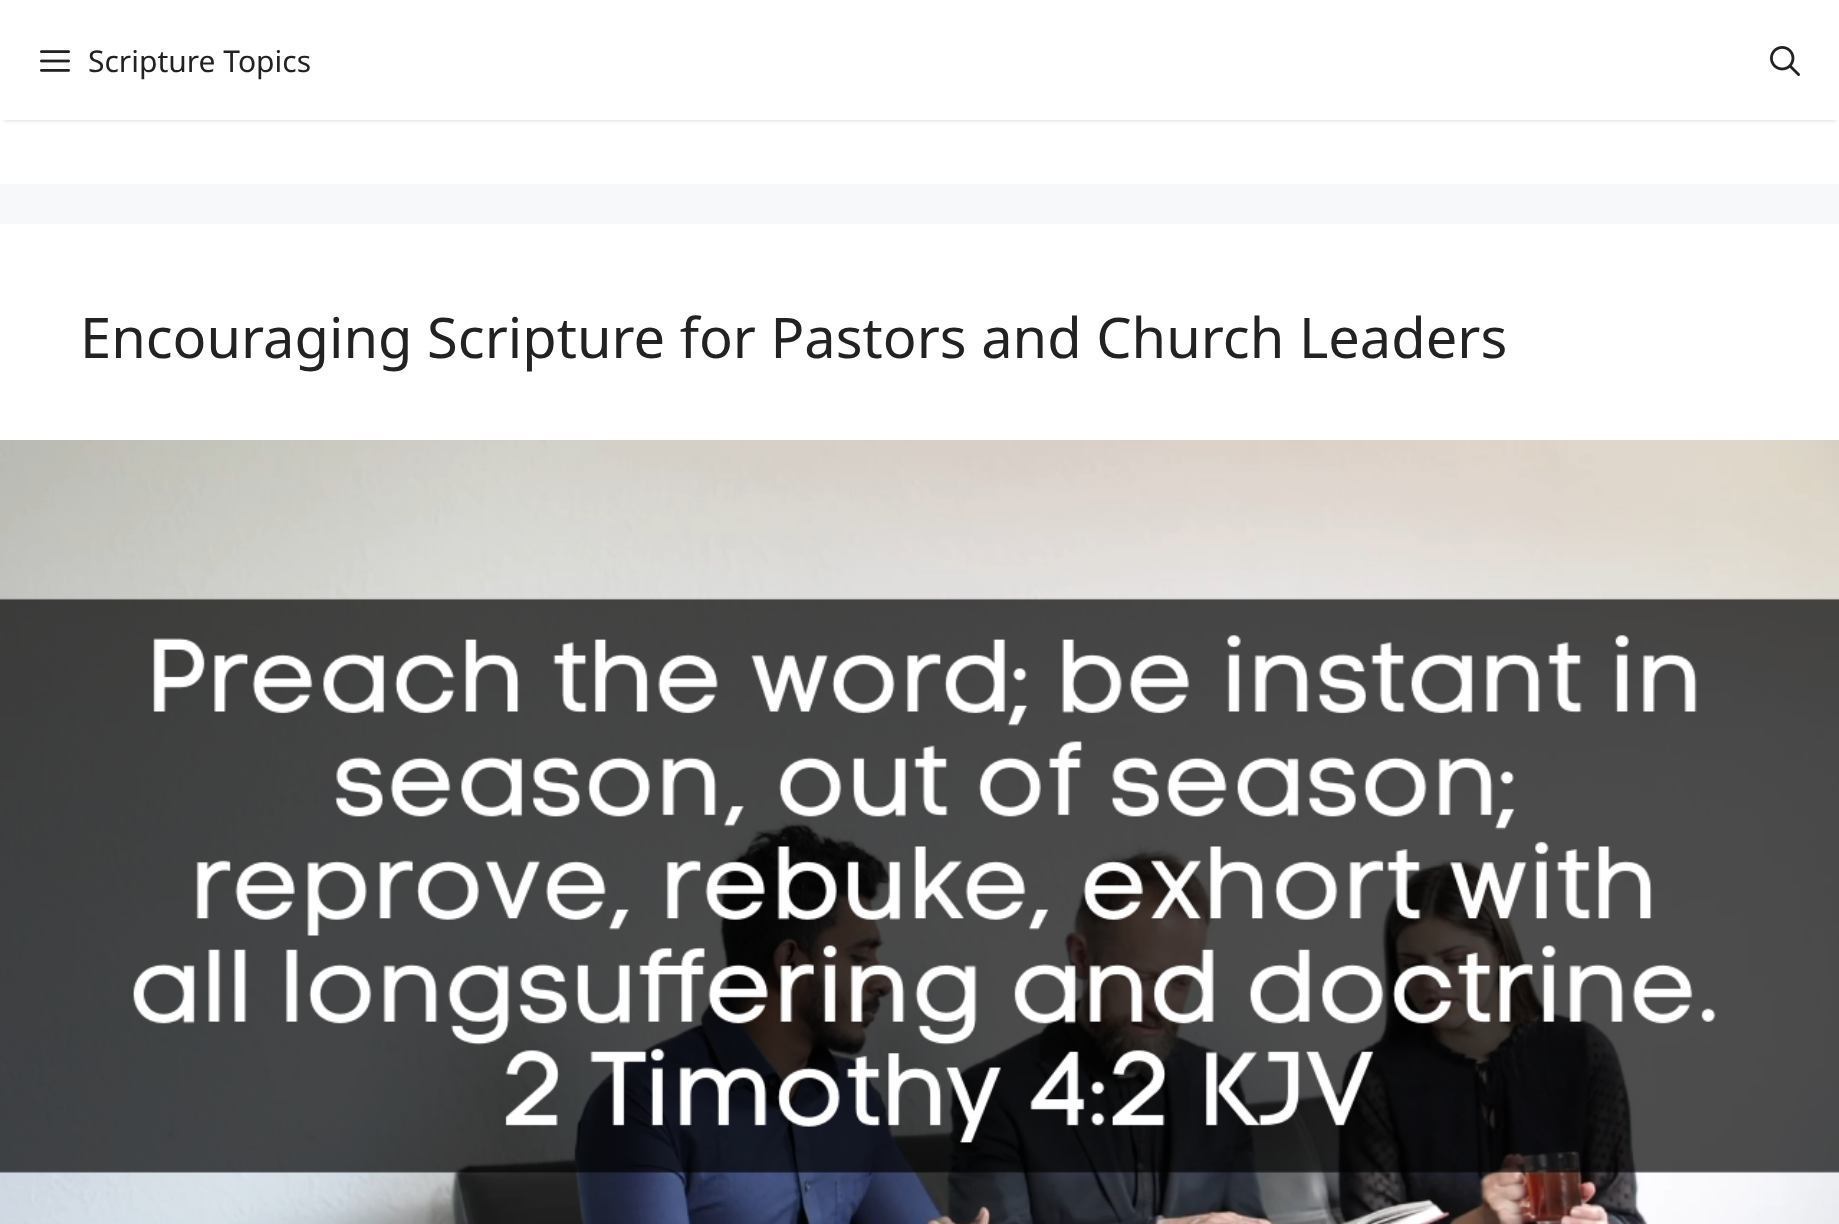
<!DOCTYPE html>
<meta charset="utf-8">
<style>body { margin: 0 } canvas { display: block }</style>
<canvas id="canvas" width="1839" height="1224"></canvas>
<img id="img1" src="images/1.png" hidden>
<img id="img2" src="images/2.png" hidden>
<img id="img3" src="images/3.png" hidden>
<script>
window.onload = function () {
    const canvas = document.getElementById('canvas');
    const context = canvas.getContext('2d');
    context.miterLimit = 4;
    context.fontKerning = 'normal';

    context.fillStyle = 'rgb(247, 248, 249)';
    context.fillRect(0, 0, 1839, 1224);
    context.fillStyle = 'rgb(255, 255, 255)';
    context.fillRect(0, 120, 1839, 64);
    context.fillStyle = 'rgba(0, 0, 0, 0.2)';
    context.filter = 'blur(2px)';
    context.beginPath();
    context.rect(4, 8, 1832, 112);
    context.fill();
    context.filter = 'none';
    context.fillStyle = 'rgb(255, 255, 255)';
    context.fillRect(0, 0, 1839, 120);
    context.drawImage(document.getElementById('img1'), 40, 50, 30, 22);
    context.drawImage(document.getElementById('img2'), 1770, 46, 30, 30);
    context.fillRect(0, 224, 1839, 216);
    context.drawImage(document.getElementById('img3'), 0, 440, 1839, 784);
    context.font = '30px Noto Sans';
    context.fillStyle = 'rgb(34, 34, 34)';
    context.fillText('Scripture Topics', 88, 72);
    context.font = '56px Noto Sans';
    context.fillText('Encouraging Scripture for Pastors and Church Leaders', 80, 358);
};
</script>
